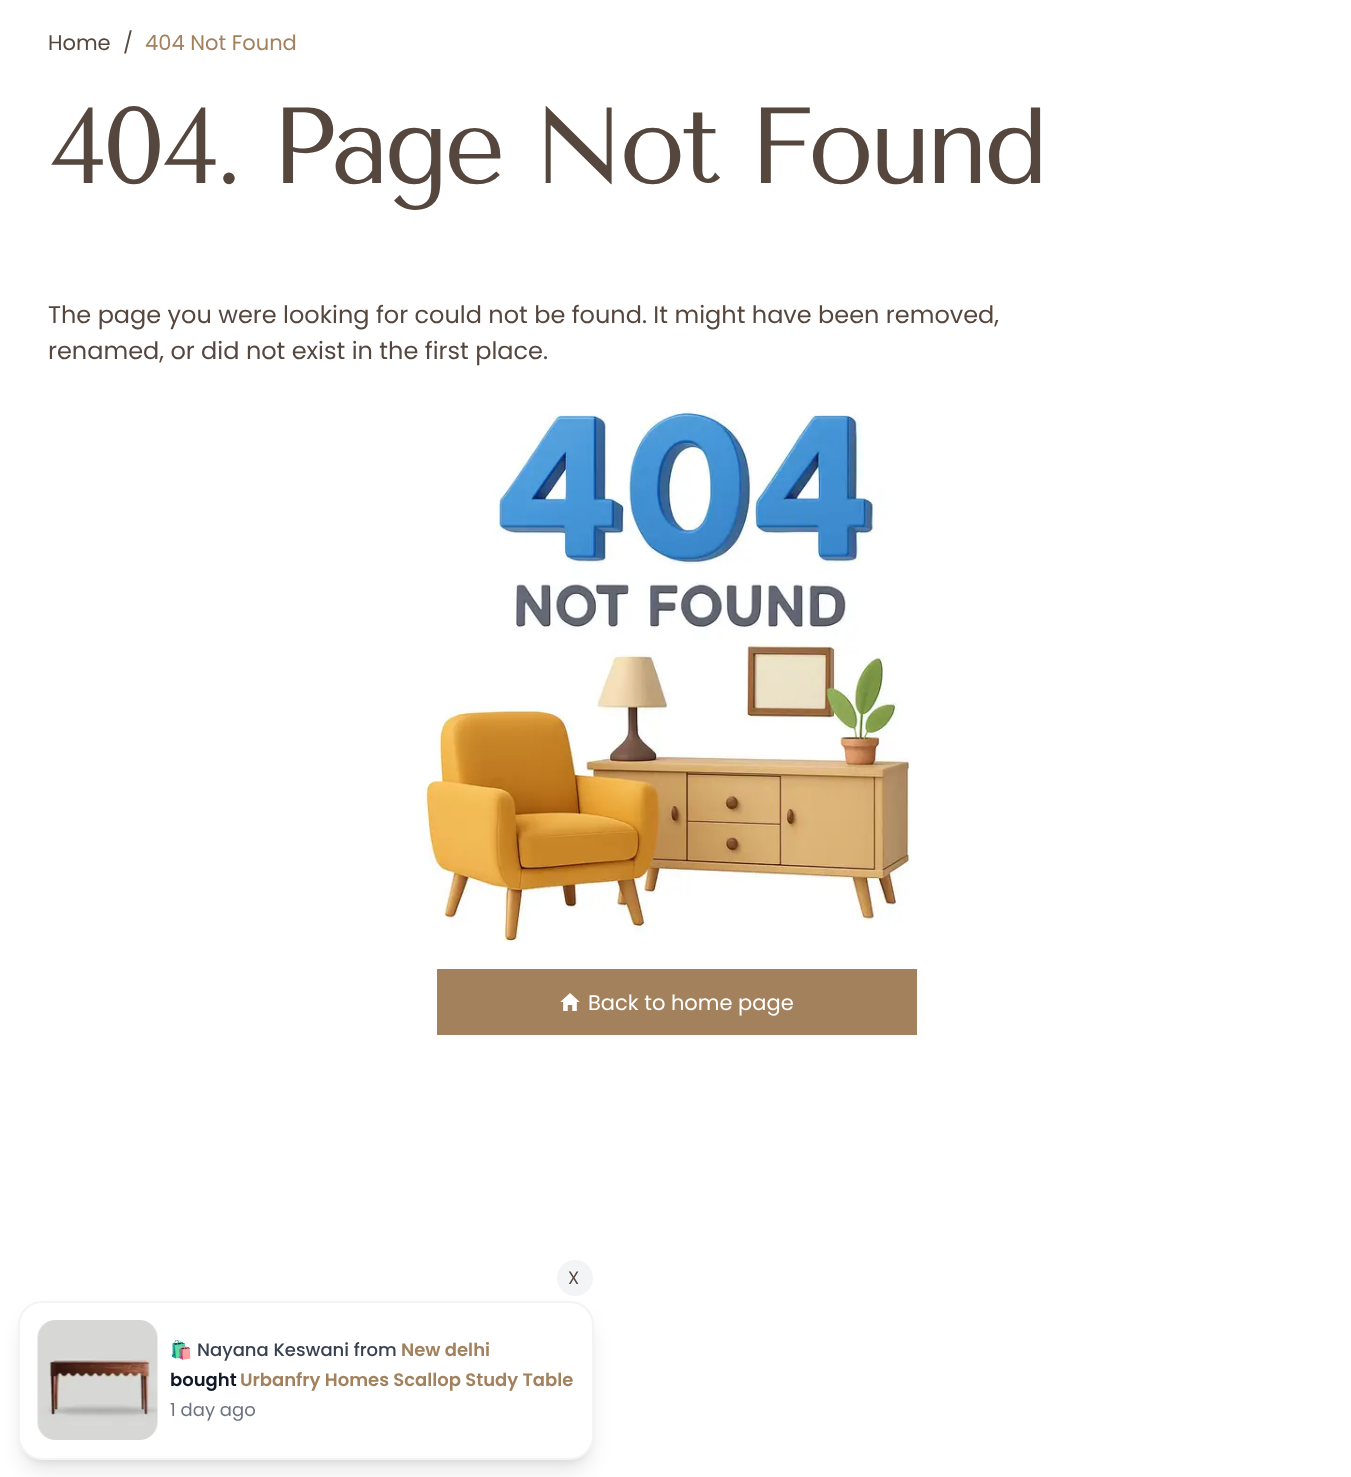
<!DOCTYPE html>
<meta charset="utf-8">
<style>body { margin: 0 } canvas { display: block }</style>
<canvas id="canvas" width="1351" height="1477"></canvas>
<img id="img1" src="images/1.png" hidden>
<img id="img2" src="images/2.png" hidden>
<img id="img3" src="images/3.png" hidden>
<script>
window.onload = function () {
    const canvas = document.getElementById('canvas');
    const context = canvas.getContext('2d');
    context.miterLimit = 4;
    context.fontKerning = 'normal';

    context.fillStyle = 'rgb(255, 255, 255)';
    context.fillRect(0, 0, 1351, 1477);
    context.drawImage(document.getElementById('img1'), 421, 410, 489, 533);
    context.fillStyle = 'rgb(163, 129, 93)';
    context.fillRect(437, 969, 480, 66);
    context.drawImage(document.getElementById('img2'), 560, 993, 20, 18);
    context.fillStyle = 'rgba(0, 0, 0, 0.1)';
    context.filter = 'blur(4.5px)';
    context.beginPath();
    context.roundRect(24, 1313, 564, 147, 18);
    context.fill();
    context.filter = 'none';
    context.filter = 'blur(11px)';
    context.beginPath();
    context.roundRect(23, 1320, 567, 150, 20);
    context.fill();
    context.filter = 'none';
    context.fillStyle = 'rgb(255, 255, 255)';
    context.beginPath();
    context.roundRect(19, 1302, 574, 157, 23);
    context.fill();
    context.strokeStyle = 'rgb(243, 244, 246)';
    context.lineWidth = 2;
    context.stroke();
    context.fillStyle = 'rgb(243, 244, 246)';
    context.beginPath();
    context.arc(575, 1278, 18, 0, 2 * Math.PI);
    context.fill();
    context.drawImage(document.getElementById('img3'), 37, 1320, 121, 120);
    context.font = '21px Poppins';
    context.fillStyle = 'rgb(86, 71, 62)';
    context.fillText('Home', 48, 50);
    context.fillText('/', 123, 50);
    context.fillStyle = 'rgb(163, 129, 93)';
    context.fillText('404 Not Found', 145, 50);
    context.letterSpacing = '-5.4px';
    context.font = '108px Tenor Sans';
    context.fillStyle = 'rgb(86, 71, 62)';
    context.fillText('404. Page Not Found', 48, 183);
    context.letterSpacing = '0px';
    context.font = '24px Poppins';
    context.fillText('The page you were looking for could not be found. It might have been removed,', 48, 323);
    context.fillText('renamed, or did not exist in the first place.', 48, 359);
    context.font = '21px Poppins';
    context.fillStyle = 'rgb(255, 255, 255)';
    context.fillText('Back to home page', 588, 1010);
    context.font = '18px Poppins';
    context.fillStyle = 'rgb(86, 71, 62)';
    context.fillText('X', 568, 1284);
    context.save();
    context.beginPath();
    context.rect(170, 1338, 405, 24);
    context.clip();
    context.font = '18px Noto Color Emoji';
    context.fillStyle = 'rgb(55, 65, 81)';
    context.fillText('🛍️', 170, 1356);
    context.restore();
    context.font = '500 18px Poppins';
    context.fillStyle = 'rgb(55, 65, 81)';
    context.fillText('Nayana Keswani from', 197, 1356);
    context.font = '600 18px Poppins';
    context.fillStyle = 'rgb(163, 129, 93)';
    context.fillText('New delhi', 401, 1356);
    context.fillStyle = 'rgb(17, 24, 39)';
    context.fillText('bought', 170, 1386);
    context.fillStyle = 'rgb(163, 129, 93)';
    context.fillText('Urbanfry Homes Scallop Study Table', 240, 1386);
    context.font = '18px Poppins';
    context.fillStyle = 'rgb(107, 114, 128)';
    context.fillText('1 day ago', 170, 1416);
};
</script>
